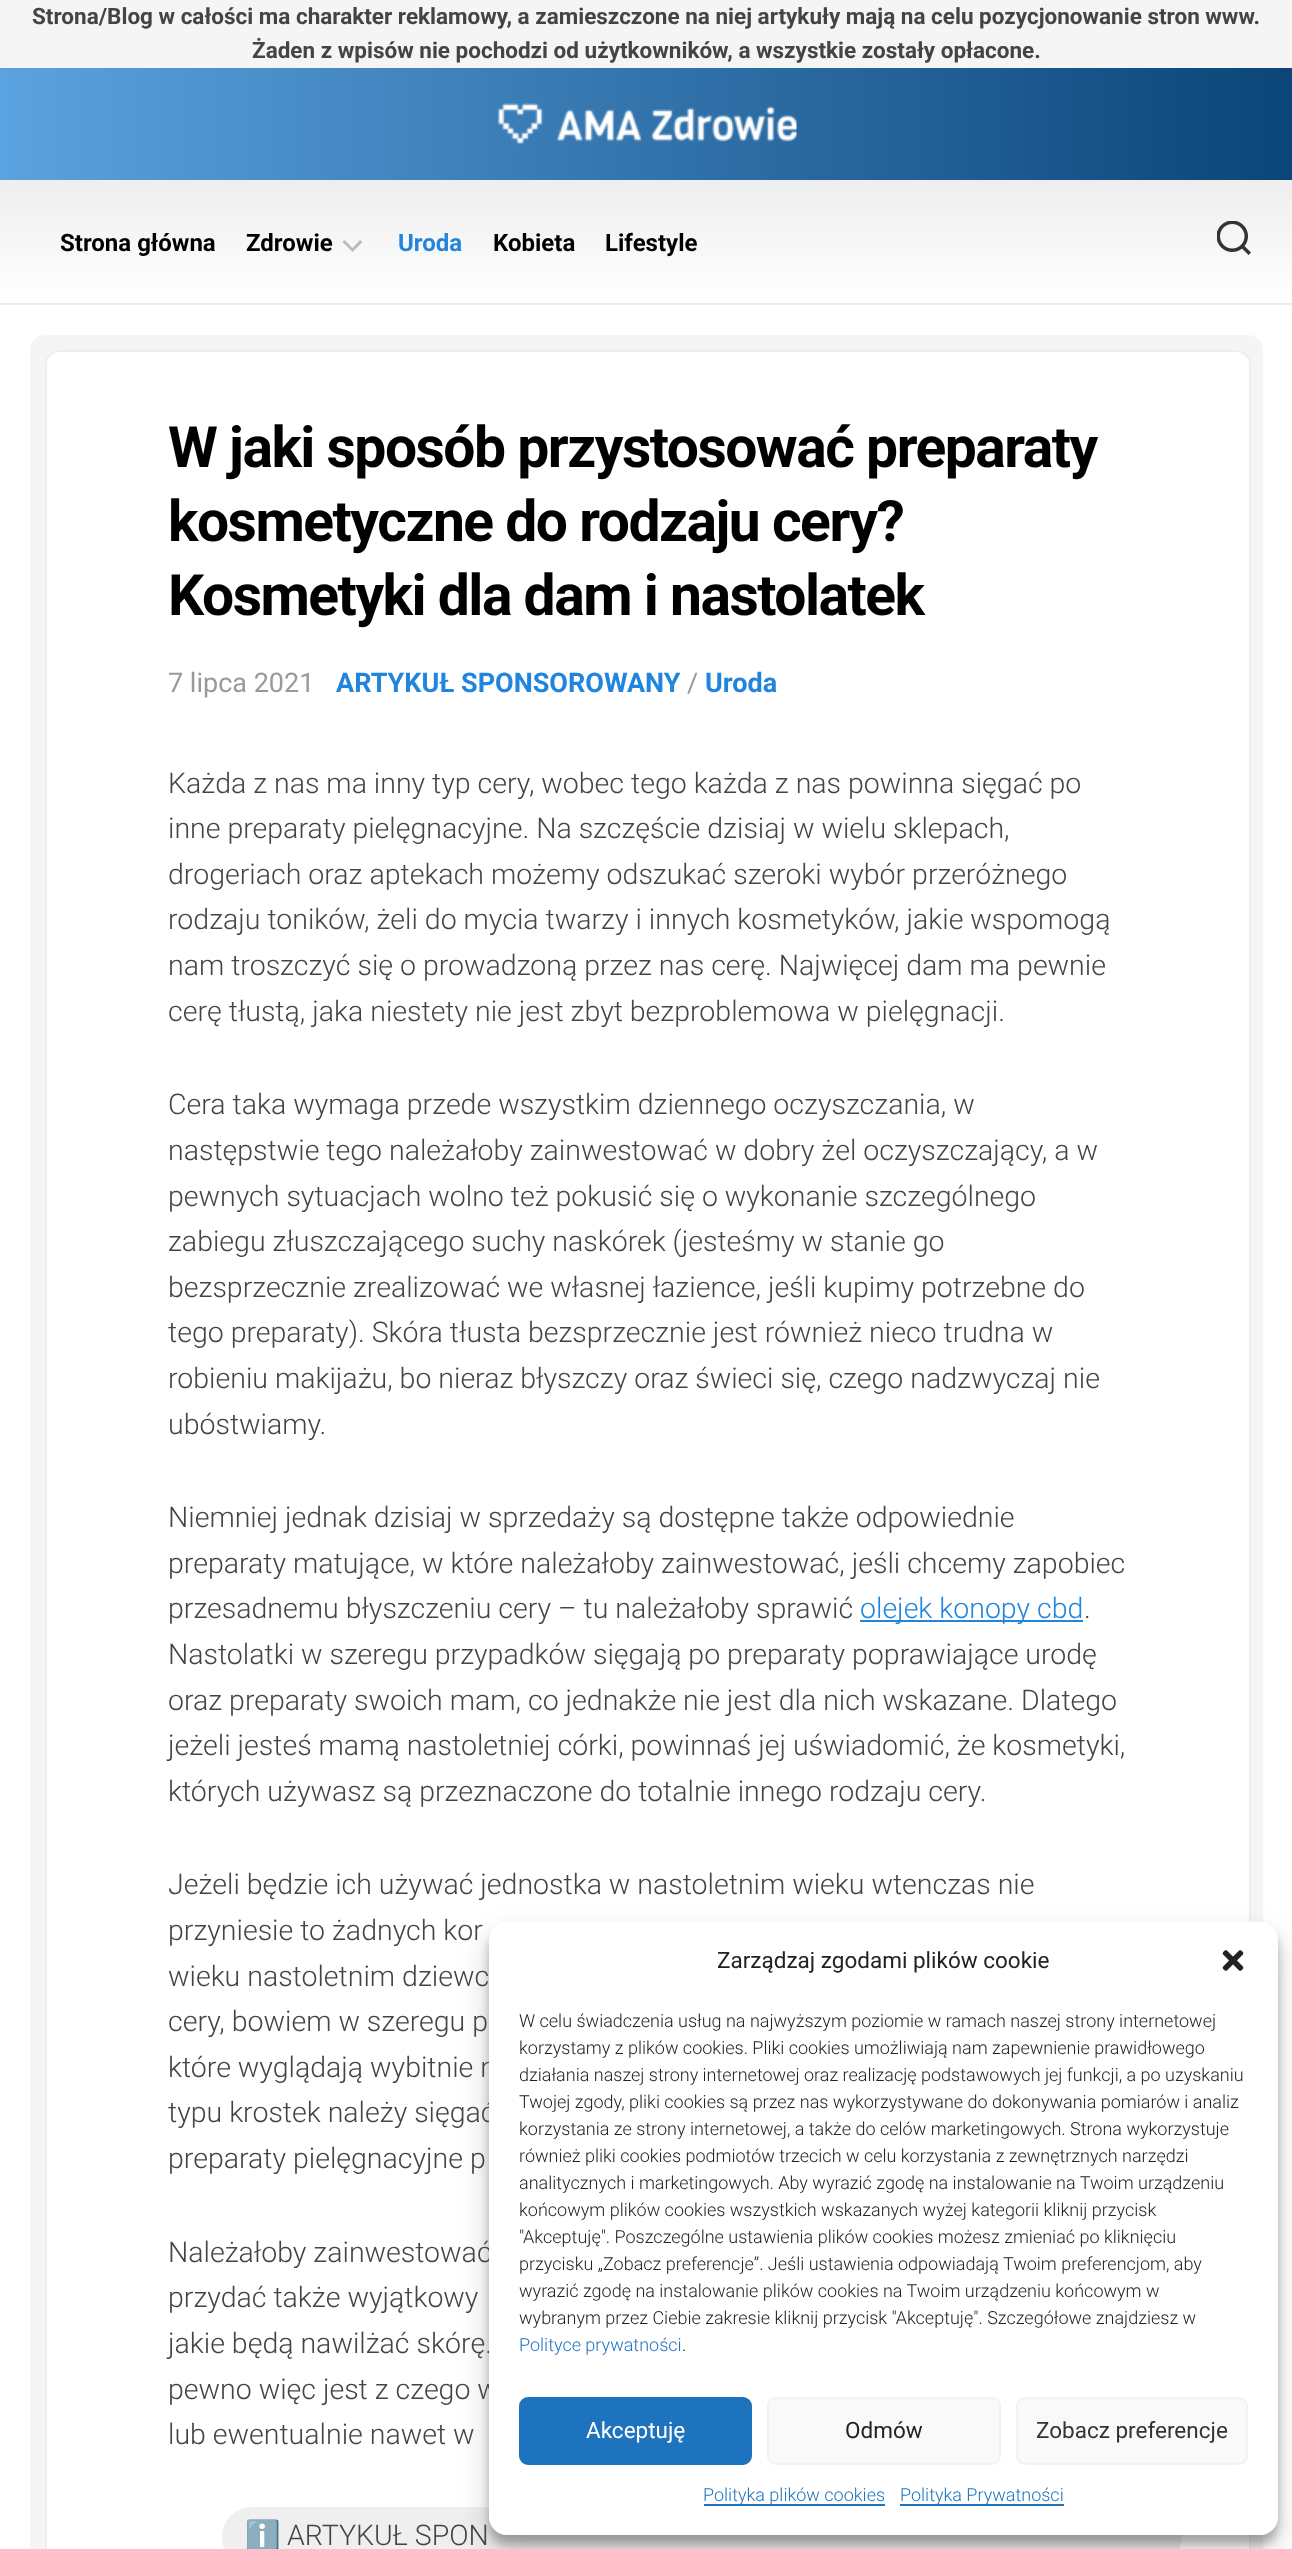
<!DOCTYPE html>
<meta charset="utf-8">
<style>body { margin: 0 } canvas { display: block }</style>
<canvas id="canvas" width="1292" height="2549"></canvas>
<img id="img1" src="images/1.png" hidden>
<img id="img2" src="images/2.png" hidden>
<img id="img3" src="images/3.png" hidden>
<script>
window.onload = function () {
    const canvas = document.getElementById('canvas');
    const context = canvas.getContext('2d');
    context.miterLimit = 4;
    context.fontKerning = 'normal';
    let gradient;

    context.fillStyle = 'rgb(245, 245, 245)';
    context.fillRect(0, 0, 1292, 2549);
    context.fillStyle = 'rgb(255, 255, 255)';
    context.fillRect(0, 305, 1292, 2244);
    gradient = context.createLinearGradient(0, 124, 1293, 124);
    gradient.addColorStop(0, 'rgb(91, 162, 224)');
    gradient.addColorStop(1, 'rgb(11, 69, 120)');
    context.fillStyle = gradient;
    context.fillRect(0, 68, 1292, 112);
    context.drawImage(document.getElementById('img1'), 497, 103, 300, 42);
    gradient = context.createLinearGradient(647, 180, 647, 303);
    gradient.addColorStop(0, 'rgb(238, 238, 238)');
    gradient.addColorStop(1, 'rgb(255, 255, 255)');
    context.fillStyle = gradient;
    context.fillRect(0, 180, 1292, 123);
    gradient = context.createLinearGradient(647, 303, 647, 426);
    gradient.addColorStop(0, 'rgb(238, 238, 238)');
    gradient.addColorStop(1, 'rgb(255, 255, 255)');
    context.fillStyle = gradient;
    context.fillRect(0, 303, 1292, 2);
    context.fillStyle = 'rgb(187, 187, 187)';
    context.beginPath();
    context.moveTo(352.5, 248);
    context.lineTo(360, 240);
    context.lineTo(362.5, 242);
    context.lineTo(352.5, 252);
    context.lineTo(342.5, 242);
    context.lineTo(344.5, 240);
    context.closePath();
    context.fill('evenodd');
    context.fillStyle = 'rgb(245, 245, 245)';
    context.beginPath();
    context.roundRect(30, 335, 1233, 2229, 15);
    context.fill();
    context.fillStyle = 'rgb(255, 255, 255)';
    context.beginPath();
    context.roundRect(46, 351, 1204, 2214, 14);
    context.fill();
    context.strokeStyle = 'rgb(238, 238, 238)';
    context.lineWidth = 2;
    context.stroke();
    context.fillStyle = 'rgb(33, 133, 221)';
    context.fillRect(860, 1620, 223, 2);
    context.fillStyle = 'rgb(239, 239, 239)';
    context.beginPath();
    context.roundRect(222, 2507, 960, 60, 30);
    context.fill();
    context.drawImage(document.getElementById('img2'), 1217, 221, 34, 34);
    context.fillStyle = 'rgba(0, 0, 0, 0.23)';
    context.filter = 'blur(4.5px)';
    context.beginPath();
    context.roundRect(489, 1931, 789, 613, 18);
    context.fill();
    context.filter = 'none';
    context.fillStyle = 'rgba(0, 0, 0, 0.19)';
    context.filter = 'blur(15px)';
    context.beginPath();
    context.roundRect(489, 1937, 789, 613, 18);
    context.fill();
    context.filter = 'none';
    context.font = 'bold 22.5px Roboto';
    context.fillStyle = 'rgb(68, 68, 68)';
    context.fillText('Strona/Blog w całości ma charakter reklamowy, a zamieszczone na niej artykuły mają na celu pozycjonowanie stron www.', 32, 24);
    context.fillText('Żaden z wpisów nie pochodzi od użytkowników, a wszystkie zostały opłacone.', 252, 58);
    context.font = 'bold 24px Roboto';
    context.fillStyle = 'rgb(0, 0, 0)';
    context.fillText('Strona główna', 60, 251);
    context.fillText('Zdrowie', 246, 251);
    context.fillStyle = 'rgb(33, 133, 221)';
    context.fillText('Uroda', 398, 251);
    context.fillStyle = 'rgb(0, 0, 0)';
    context.fillText('Kobieta', 493, 251);
    context.fillText('Lifestyle', 605, 251);
    context.letterSpacing = '-1.5px';
    context.font = 'bold 57px Roboto';
    context.fillText('W jaki sposób przystosować preparaty', 168, 467);
    context.fillText('kosmetyczne do rodzaju cery?', 168, 541);
    context.fillText('Kosmetyki dla dam i nastolatek', 168, 615);
    context.letterSpacing = '0px';
    context.font = '27px Roboto';
    context.fillStyle = 'rgb(153, 153, 153)';
    context.fillText('7 lipca 2021', 168, 692);
    context.font = 'bold 27px Roboto';
    context.fillStyle = 'rgb(33, 133, 221)';
    context.fillText('ARTYKUŁ SPONSOROWANY', 336, 692);
    context.font = '27px Roboto';
    context.fillStyle = 'rgb(153, 153, 153)';
    context.fillText('/', 687, 692);
    context.font = 'bold 27px Roboto';
    context.fillStyle = 'rgb(33, 133, 221)';
    context.fillText('Uroda', 705, 692);
    context.font = '300 28.5px Roboto';
    context.fillStyle = 'rgb(68, 68, 68)';
    context.fillText('Każda z nas ma inny typ cery, wobec tego każda z nas powinna sięgać po', 168, 793);
    context.fillText('inne preparaty pielęgnacyjne. Na szczęście dzisiaj w wielu sklepach,', 168, 838);
    context.fillText('drogeriach oraz aptekach możemy odszukać szeroki wybór przeróżnego', 168, 884);
    context.fillText('rodzaju toników, żeli do mycia twarzy i innych kosmetyków, jakie wspomogą', 168, 929);
    context.fillText('nam troszczyć się o prowadzoną przez nas cerę. Najwięcej dam ma pewnie', 168, 975);
    context.fillText('cerę tłustą, jaka niestety nie jest zbyt bezproblemowa w pielęgnacji.', 168, 1021);
    context.fillText('Cera taka wymaga przede wszystkim dziennego oczyszczania, w', 168, 1114);
    context.fillText('następstwie tego należałoby zainwestować w dobry żel oczyszczający, a w', 168, 1160);
    context.fillText('pewnych sytuacjach wolno też pokusić się o wykonanie szczególnego', 168, 1206);
    context.fillText('zabiegu złuszczającego suchy naskórek (jesteśmy w stanie go', 168, 1251);
    context.fillText('bezsprzecznie zrealizować we własnej łazience, jeśli kupimy potrzebne do', 168, 1297);
    context.fillText('tego preparaty). Skóra tłusta bezsprzecznie jest również nieco trudna w', 168, 1342);
    context.fillText('robieniu makijażu, bo nieraz błyszczy oraz świeci się, czego nadzwyczaj nie', 168, 1388);
    context.fillText('ubóstwiamy.', 168, 1434);
    context.fillText('Niemniej jednak dzisiaj w sprzedaży są dostępne także odpowiednie', 168, 1527);
    context.fillText('preparaty matujące, w które należałoby zainwestować, jeśli chcemy zapobiec', 168, 1573);
    context.fillText('przesadnemu błyszczeniu cery – tu należałoby sprawić', 168, 1618);
    context.fillStyle = 'rgb(33, 133, 221)';
    context.fillText('olejek konopy cbd', 860, 1618);
    context.fillStyle = 'rgb(68, 68, 68)';
    context.fillText('.', 1084, 1618);
    context.fillText('Nastolatki w szeregu przypadków sięgają po preparaty poprawiające urodę', 168, 1664);
    context.fillText('oraz preparaty swoich mam, co jednakże nie jest dla nich wskazane. Dlatego', 168, 1710);
    context.fillText('jeżeli jesteś mamą nastoletniej córki, powinnaś jej uświadomić, że kosmetyki,', 168, 1755);
    context.fillText('których używasz są przeznaczone do totalnie innego rodzaju cery.', 168, 1801);
    context.fillText('Jeżeli będzie ich używać jednostka w nastoletnim wieku wtenczas nie', 168, 1894);
    context.fillText('przyniesie to żadnych kor', 168, 1940);
    context.fillText('wieku nastoletnim dziewc', 168, 1986);
    context.fillText('cery, bowiem w szeregu p', 168, 2031);
    context.fillText('które wyglądają wybitnie n', 168, 2077);
    context.fillText('typu krostek należy sięgać', 168, 2122);
    context.fillText('preparaty pielęgnacyjne p', 168, 2168);
    context.fillText('Należałoby zainwestować', 168, 2262);
    context.fillText('przydać także wyjątkowy', 168, 2307);
    context.fillText('jakie będą nawilżać skórę.', 168, 2353);
    context.fillText('pewno więc jest z czego w', 168, 2399);
    context.fillText('lub ewentualnie nawet w', 168, 2444);
    context.font = '28.5px Noto Color Emoji';
    context.fillText('ℹ️', 245, 2545);
    context.font = '300 28.5px Roboto';
    context.fillText('ARTYKUŁ SPON', 287, 2545);
    context.fillStyle = 'rgb(255, 255, 255)';
    context.beginPath();
    context.roundRect(489, 1922, 789, 613, 18);
    context.fill();
    context.font = '22.5px Roboto';
    context.fillStyle = 'rgb(34, 34, 34)';
    context.fillText('Zarządzaj zgodami plików cookie', 717, 1968);
    context.drawImage(document.getElementById('img3'), 1222, 1950, 22, 21);
    context.font = '300 18px Roboto';
    context.fillText('W celu świadczenia usług na najwyższym poziomie w ramach naszej strony internetowej', 519, 2027);
    context.fillText('korzystamy z plików cookies. Pliki cookies umożliwiają nam zapewnienie prawidłowego', 519, 2054);
    context.fillText('działania naszej strony internetowej oraz realizację podstawowych jej funkcji, a po uzyskaniu', 519, 2081);
    context.fillText('Twojej zgody, pliki cookies są przez nas wykorzystywane do dokonywania pomiarów i analiz', 519, 2108);
    context.fillText('korzystania ze strony internetowej, a także do celów marketingowych. Strona wykorzystuje', 519, 2135);
    context.fillText('również pliki cookies podmiotów trzecich w celu korzystania z zewnętrznych narzędzi', 519, 2162);
    context.fillText('analitycznych i marketingowych. Aby wyrazić zgodę na instalowanie na Twoim urządzeniu', 519, 2189);
    context.fillText('końcowym plików cookies wszystkich wskazanych wyżej kategorii kliknij przycisk', 519, 2216);
    context.fillText('"Akceptuję". Poszczególne ustawienia plików cookies możesz zmieniać po kliknięciu', 519, 2243);
    context.fillText('przycisku „Zobacz preferencje”. Jeśli ustawienia odpowiadają Twoim preferencjom, aby', 519, 2270);
    context.fillText('wyrazić zgodę na instalowanie plików cookies na Twoim urządzeniu końcowym w', 519, 2297);
    context.fillText('wybranym przez Ciebie zakresie kliknij przycisk "Akceptuję". Szczegółowe znajdziesz w', 519, 2324);
    context.fillStyle = 'rgb(30, 115, 190)';
    context.fillText('Polityce prywatności', 519, 2351);
    context.fillStyle = 'rgb(34, 34, 34)';
    context.fillText('.', 682, 2351);
    context.fillStyle = 'rgb(30, 115, 190)';
    context.beginPath();
    context.roundRect(520, 2398, 231, 66, 8);
    context.fill();
    context.strokeStyle = 'rgb(30, 115, 190)';
    context.stroke();
    context.font = '22.5px Roboto';
    context.fillStyle = 'rgb(255, 255, 255)';
    context.fillText('Akceptuję', 586, 2438);
    context.fillStyle = 'rgb(249, 249, 249)';
    context.beginPath();
    context.roundRect(768, 2398, 232, 66, 8);
    context.fill();
    context.strokeStyle = 'rgb(242, 242, 242)';
    context.stroke();
    context.fillStyle = 'rgb(34, 34, 34)';
    context.fillText('Odmów', 845, 2438);
    context.fillStyle = 'rgb(249, 249, 249)';
    context.beginPath();
    context.roundRect(1017, 2398, 230, 66, 8);
    context.fill();
    context.stroke();
    context.fillStyle = 'rgb(51, 51, 51)';
    context.fillText('Zobacz preferencje', 1036, 2438);
    context.fillStyle = 'rgb(30, 115, 190)';
    context.fillRect(704, 2504, 181, 2);
    context.font = '300 18px Roboto';
    context.fillText('Polityka plików cookies', 703, 2501);
    context.fillRect(900, 2504, 164, 2);
    context.fillText('Polityka Prywatności', 900, 2501);
};
</script>
